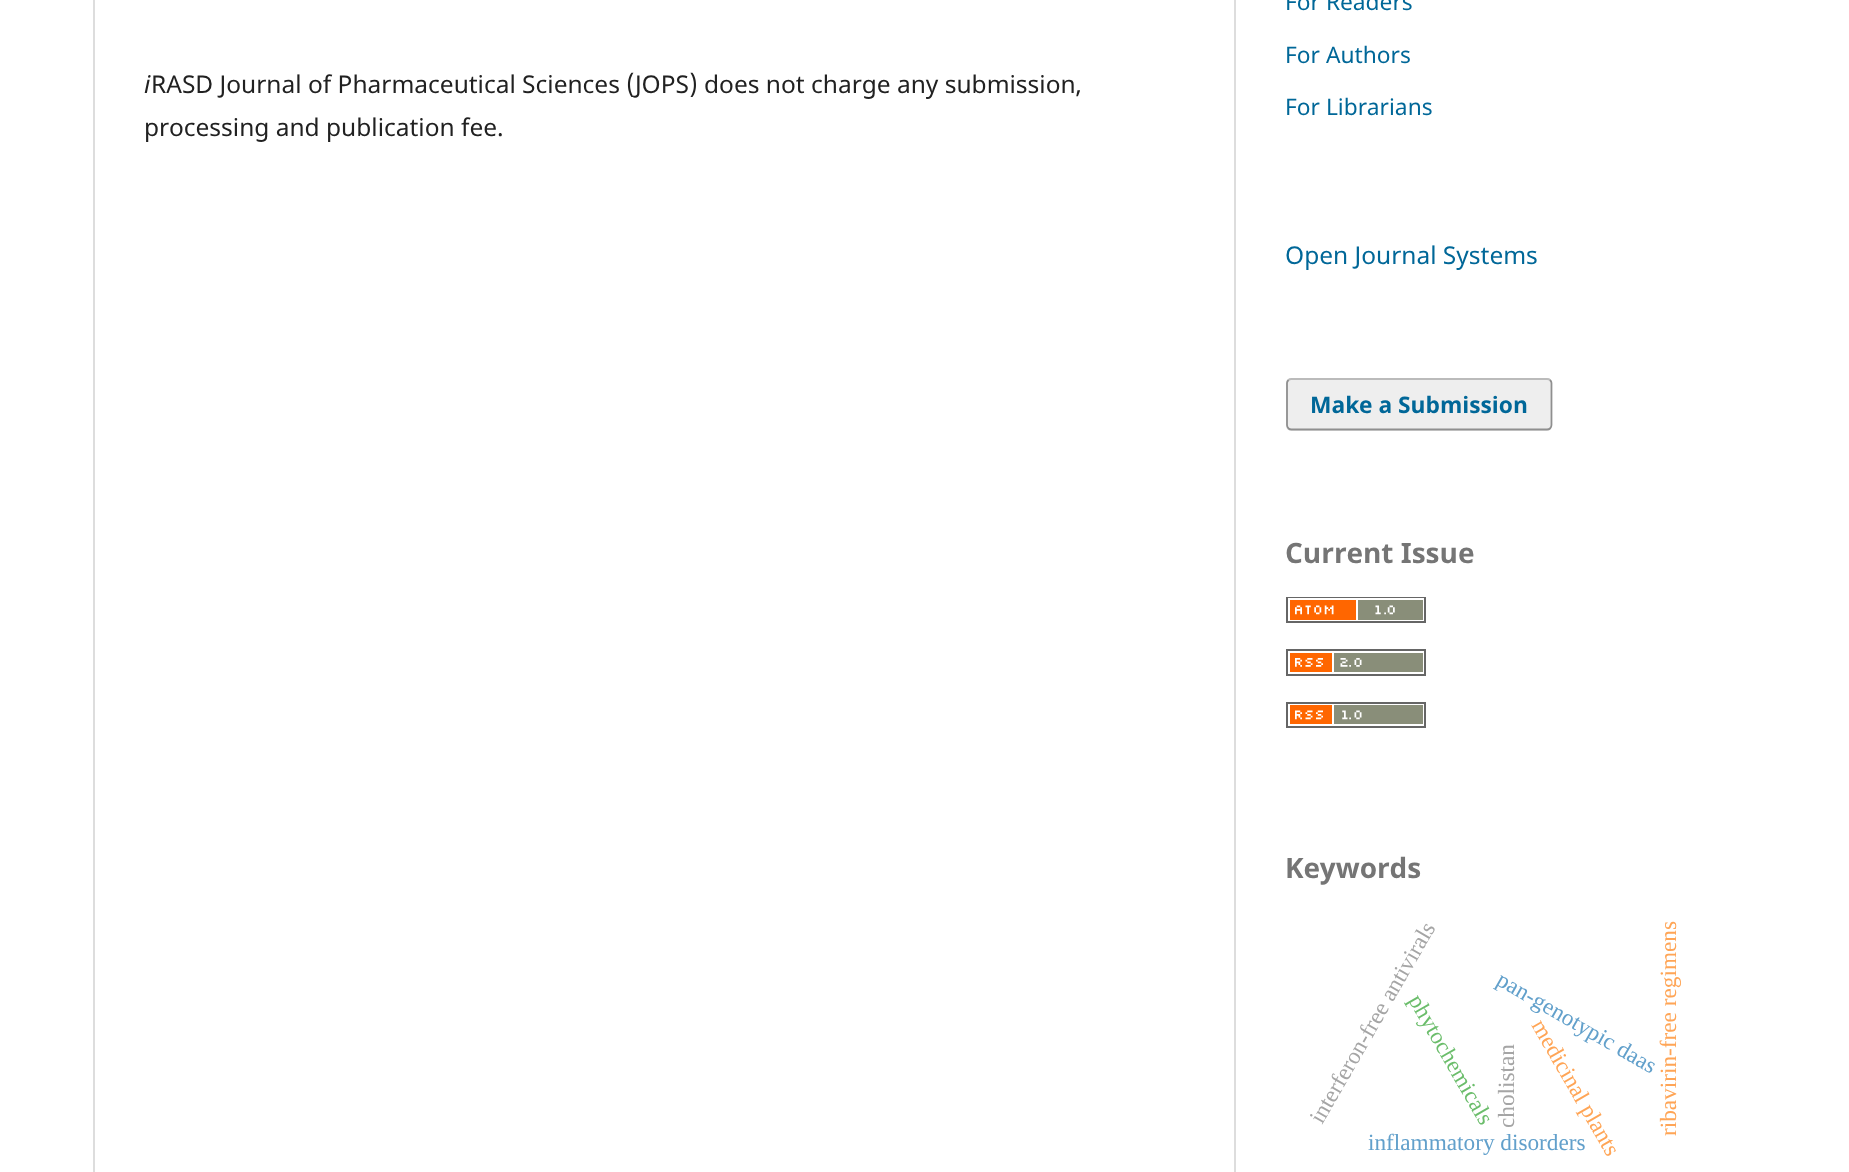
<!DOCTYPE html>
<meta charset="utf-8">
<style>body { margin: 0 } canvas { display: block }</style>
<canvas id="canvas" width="1849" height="1172"></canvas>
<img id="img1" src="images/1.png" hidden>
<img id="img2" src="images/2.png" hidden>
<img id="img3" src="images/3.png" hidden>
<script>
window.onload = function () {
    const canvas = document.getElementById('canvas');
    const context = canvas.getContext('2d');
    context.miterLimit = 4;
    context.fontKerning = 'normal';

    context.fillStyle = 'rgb(255, 255, 255)';
    context.fillRect(0, 0, 1849, 1172);
    context.fillStyle = 'rgb(221, 221, 221)';
    context.fillRect(93, 0, 2, 1172);
    context.fillRect(1234, 0, 2, 1172);
    context.fillStyle = 'rgb(238, 238, 238)';
    context.beginPath();
    context.roundRect(1286, 378, 266, 53, 5);
    context.fill();
    context.beginPath();
    context.moveTo(1288.5, 380);
    context.bezierCurveTo(1289, 379.5, 1290.5, 379, 1291.5, 379);
    context.lineTo(1547, 379);
    context.bezierCurveTo(1548, 379, 1549.5, 379.5, 1550, 380);
    context.strokeStyle = 'rgb(187, 187, 187)';
    context.lineWidth = 1.8;
    context.stroke();
    context.beginPath();
    context.moveTo(1550, 380);
    context.bezierCurveTo(1551, 381, 1551.5, 382, 1551.5, 383);
    context.lineTo(1551.5, 425);
    context.bezierCurveTo(1551.5, 426.5, 1551, 427.5, 1550, 428.5);
    context.bezierCurveTo(1549.5, 429, 1548, 429.5, 1547, 429.5);
    context.lineTo(1291.5, 429.5);
    context.bezierCurveTo(1290.5, 429.5, 1289, 429, 1288.5, 428.5);
    context.bezierCurveTo(1287.5, 427.5, 1287, 426.5, 1287, 425);
    context.lineTo(1287, 383);
    context.bezierCurveTo(1287, 382, 1287.5, 381, 1288.5, 380);
    context.strokeStyle = 'rgba(0, 0, 0, 0.4)';
    context.stroke();
    context.drawImage(document.getElementById('img1'), 1286, 597, 140, 26);
    context.drawImage(document.getElementById('img2'), 1286, 649, 140, 27);
    context.drawImage(document.getElementById('img3'), 1286, 702, 140, 26);
    context.font = 'italic 24.5px Noto Sans';
    context.fillStyle = 'rgb(33, 33, 33)';
    context.fillText('i', 144, 93);
    context.font = '24.5px Noto Sans';
    context.fillText('RASD Journal of Pharmaceutical Sciences (JOPS) does not charge any submission,', 151, 93);
    context.fillText('processing and publication fee.', 144, 136);
    context.font = '22.75px Noto Sans';
    context.fillStyle = 'rgb(0, 103, 152)';
    context.fillText('For Readers', 1285, 10);
    context.fillText('For Authors', 1285, 63);
    context.fillText('For Librarians', 1285, 115);
    context.font = '24.5px Noto Sans';
    context.fillText('Open Journal Systems', 1285, 264);
    context.font = 'bold 22.75px Noto Sans';
    context.fillText('Make a Submission', 1310, 413);
    context.font = 'bold 28px Noto Sans';
    context.fillStyle = 'rgb(117, 117, 117)';
    context.fillText('Current Issue', 1285, 563);
    context.fillText('Keywords', 1285, 878);
    context.font = '23.25px Liberation Serif';
    context.fillStyle = 'rgb(107, 189, 107)';
    context.save();
    context.translate(1408, 1000);
    context.rotate(60 * Math.PI / 180);
    context.fillText('phytochemicals', 0, 0);
    context.restore();
    context.fillStyle = 'rgb(165, 165, 165)';
    context.save();
    context.translate(1322, 1125);
    context.rotate(-60 * Math.PI / 180);
    context.fillText('interferon-free antivirals', 0, 0);
    context.restore();
    context.fillStyle = 'rgb(255, 165, 86)';
    context.save();
    context.translate(1676, 1136);
    context.rotate(-90 * Math.PI / 180);
    context.fillText('ribavirin-free regimens', 0, 0);
    context.restore();
    context.fillStyle = 'rgb(165, 165, 165)';
    context.save();
    context.translate(1514, 1128);
    context.rotate(-90 * Math.PI / 180);
    context.fillText('cholistan', 0, 0);
    context.restore();
    context.fillStyle = 'rgb(98, 160, 203)';
    context.fillText('inflammatory disorders', 1368, 1150);
    context.fillStyle = 'rgb(255, 165, 86)';
    context.save();
    context.translate(1531, 1025);
    context.rotate(60 * Math.PI / 180);
    context.fillText('medicinal plants', 0, 0);
    context.restore();
    context.fillStyle = 'rgb(98, 160, 203)';
    context.save();
    context.translate(1495, 984);
    context.rotate(30 * Math.PI / 180);
    context.fillText('pan-genotypic daas', 0, 0);
    context.restore();
};
</script>
